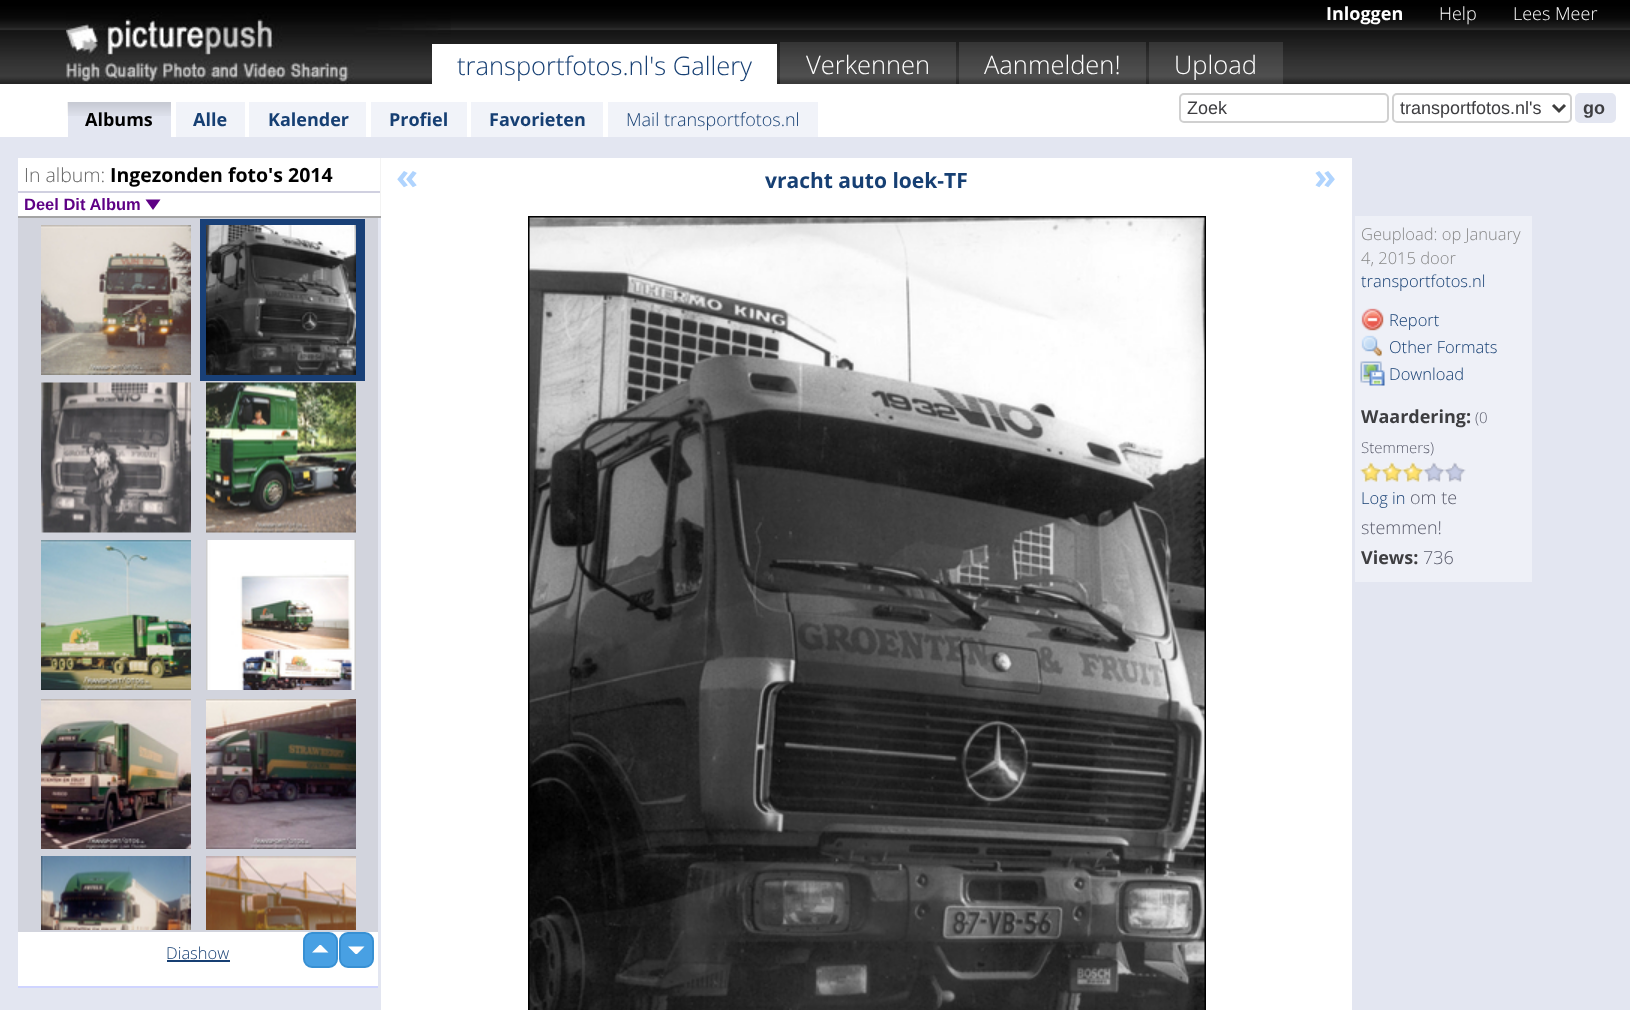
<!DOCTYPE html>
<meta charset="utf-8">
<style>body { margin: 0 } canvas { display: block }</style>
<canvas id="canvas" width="1630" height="1010"></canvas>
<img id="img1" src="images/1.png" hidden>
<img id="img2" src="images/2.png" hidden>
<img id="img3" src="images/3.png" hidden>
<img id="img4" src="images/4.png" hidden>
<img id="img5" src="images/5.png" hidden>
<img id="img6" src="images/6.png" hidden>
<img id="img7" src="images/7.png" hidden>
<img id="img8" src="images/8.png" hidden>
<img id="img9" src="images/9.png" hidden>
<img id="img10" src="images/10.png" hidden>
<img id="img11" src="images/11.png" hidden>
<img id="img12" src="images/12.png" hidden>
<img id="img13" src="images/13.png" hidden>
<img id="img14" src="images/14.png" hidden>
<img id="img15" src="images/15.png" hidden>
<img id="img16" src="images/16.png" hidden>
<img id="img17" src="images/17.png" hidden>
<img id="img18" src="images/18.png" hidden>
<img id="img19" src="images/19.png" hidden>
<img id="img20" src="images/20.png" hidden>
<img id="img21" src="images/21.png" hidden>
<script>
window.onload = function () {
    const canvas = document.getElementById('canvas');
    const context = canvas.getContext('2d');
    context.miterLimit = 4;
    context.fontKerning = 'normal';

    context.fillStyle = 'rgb(227, 230, 241)';
    context.fillRect(0, 0, 1630, 1010);
    context.drawImage(document.getElementById('img1'), 0, 0, 1630, 84);
    context.drawImage(document.getElementById('img2'), 66, 12, 385, 72);
    context.fillStyle = 'rgb(255, 255, 255)';
    context.fillRect(432, 44, 345, 40);
    context.fillStyle = 'rgba(255, 255, 255, 0.1)';
    context.fillRect(780, 42, 176, 42);
    context.fillRect(959, 42, 187, 42);
    context.fillRect(1149, 42, 134, 42);
    context.fillStyle = 'rgb(255, 255, 255)';
    context.fillRect(0, 84, 1630, 53);
    context.beginPath();
    context.roundRect(1180, 94, 208, 28, 4);
    context.strokeStyle = 'rgb(208, 208, 208)';
    context.lineWidth = 2;
    context.stroke();
    context.beginPath();
    context.roundRect(1393, 94, 178, 28, 4);
    context.stroke();
    context.beginPath();
    context.moveTo(1553, 105);
    context.lineTo(1559, 111);
    context.lineTo(1565, 105);
    context.strokeStyle = 'rgb(62, 62, 62)';
    context.lineWidth = 3;
    context.stroke();
    context.fillStyle = 'rgb(227, 230, 241)';
    context.beginPath();
    context.roundRect(1576, 94, 39, 28, 4);
    context.fill();
    context.strokeStyle = 'rgb(227, 230, 241)';
    context.lineWidth = 2;
    context.stroke();
    context.fillRect(68, 102, 103, 35);
    context.drawImage(document.getElementById('img3'), 67, 102, 104, 14);
    context.fillStyle = 'rgb(241, 243, 249)';
    context.fillRect(176, 102, 69, 35);
    context.fillRect(249, 102, 117, 35);
    context.fillRect(371, 102, 96, 35);
    context.fillRect(471, 102, 132, 35);
    context.fillRect(608, 102, 210, 35);
    context.fillStyle = 'rgb(255, 255, 255)';
    context.fillRect(18, 158, 362, 58);
    context.fillStyle = 'rgb(243, 243, 243)';
    context.fillRect(380, 158, 1, 60);
    context.fillStyle = 'rgb(164, 164, 164)';
    context.fillRect(18, 216, 363, 2);
    context.fillStyle = 'rgb(208, 208, 224)';
    context.fillRect(18, 191, 362, 2);
    context.fillStyle = 'rgb(94, 0, 133)';
    context.beginPath();
    context.moveTo(145.5, 199.5);
    context.lineTo(160.5, 199.5);
    context.lineTo(153, 210);
    context.closePath();
    context.fill();
    context.fillStyle = 'rgb(210, 212, 221)';
    context.fillRect(18, 218, 360, 714);
    context.fillStyle = 'rgb(207, 212, 255)';
    context.fillRect(18, 986, 360, 2);
    context.drawImage(document.getElementById('img4'), 41, 225, 150, 150);
    context.fillStyle = 'rgb(25, 64, 119)';
    context.fillRect(200, 219, 165, 162);
    context.drawImage(document.getElementById('img5'), 206, 225, 150, 150);
    context.drawImage(document.getElementById('img6'), 41, 382, 150, 151);
    context.drawImage(document.getElementById('img7'), 206, 382, 150, 151);
    context.drawImage(document.getElementById('img8'), 41, 540, 150, 150);
    context.drawImage(document.getElementById('img9'), 206, 540, 150, 150);
    context.drawImage(document.getElementById('img10'), 41, 699, 150, 150);
    context.drawImage(document.getElementById('img11'), 206, 699, 150, 150);
    context.drawImage(document.getElementById('img12'), 41, 856, 150, 74);
    context.drawImage(document.getElementById('img13'), 206, 856, 150, 74);
    context.fillStyle = 'rgb(255, 255, 255)';
    context.fillRect(18, 932, 360, 54);
    context.fillStyle = 'rgb(72, 160, 227)';
    context.beginPath();
    context.roundRect(304, 933, 33, 34, 8);
    context.fill();
    context.strokeStyle = 'rgb(56, 144, 211)';
    context.stroke();
    context.beginPath();
    context.roundRect(340, 933, 33, 34, 8);
    context.fill();
    context.stroke();
    context.fillStyle = 'rgb(255, 255, 255)';
    context.beginPath();
    context.moveTo(328.5, 952.5);
    context.lineTo(312, 952.5);
    context.lineTo(319.5, 945);
    context.lineTo(321, 945);
    context.closePath();
    context.moveTo(348, 946.5);
    context.lineTo(364.5, 946.5);
    context.lineTo(357, 954);
    context.lineTo(355.5, 954);
    context.closePath();
    context.fill();
    context.fillStyle = 'rgb(22, 63, 115)';
    context.fillRect(167, 960, 63, 2);
    context.fillStyle = 'rgb(255, 255, 255)';
    context.fillRect(381, 158, 971, 852);
    context.drawImage(document.getElementById('img14'), 528, 216, 678, 794);
    context.fillStyle = 'rgb(238, 240, 247)';
    context.fillRect(1355, 216, 177, 366);
    context.drawImage(document.getElementById('img15'), 1361, 308, 23, 23);
    context.drawImage(document.getElementById('img16'), 1361, 335, 21, 22);
    context.drawImage(document.getElementById('img17'), 1360, 361, 25, 25);
    context.drawImage(document.getElementById('img18'), 1360, 462, 22, 20);
    context.drawImage(document.getElementById('img19'), 1381, 462, 22, 20);
    context.drawImage(document.getElementById('img19'), 1402, 462, 22, 20);
    context.drawImage(document.getElementById('img20'), 1423, 462, 22, 20);
    context.drawImage(document.getElementById('img21'), 1444, 462, 22, 20);
    context.font = '300 25.5px Open Sans';
    context.fillStyle = 'rgb(22, 63, 115)';
    context.fillText('transportfotos.nl\'s Gallery', 457, 75);
    context.fillStyle = 'rgb(255, 255, 255)';
    context.fillText('Verkennen', 806, 74);
    context.fillText('Aanmelden!', 984, 74);
    context.fillText('Upload', 1174, 74);
    context.font = 'bold 18px Open Sans';
    context.fillText('Inloggen', 1326, 20);
    context.font = '300 18px Open Sans';
    context.fillText('Help', 1439, 20);
    context.fillText('Lees Meer', 1513, 20);
    context.font = '18px Liberation Sans';
    context.fillStyle = 'rgb(62, 62, 65)';
    context.fillText('Zoek', 1187, 114);
    context.fillText('transportfotos.nl\'s', 1400, 114);
    context.font = 'bold 18px Liberation Sans';
    context.fillText('go', 1583, 114);
    context.font = 'bold 18px Open Sans';
    context.fillStyle = 'rgb(0, 0, 0)';
    context.fillText('Albums', 85, 126);
    context.fillStyle = 'rgb(22, 63, 115)';
    context.fillText('Alle', 193, 126);
    context.fillText('Kalender', 268, 126);
    context.fillText('Profiel', 389, 126);
    context.fillText('Favorieten', 489, 126);
    context.font = '300 18px Open Sans';
    context.fillText('Mail transportfotos.nl', 626, 126);
    context.font = '300 19.5px Open Sans';
    context.fillStyle = 'rgb(102, 102, 102)';
    context.fillText('In album:', 24, 182);
    context.font = 'bold 19.5px Open Sans';
    context.fillStyle = 'rgb(0, 0, 0)';
    context.fillText('Ingezonden foto\'s 2014', 110, 182);
    context.font = 'bold 16.5px Liberation Sans';
    context.fillStyle = 'rgb(94, 0, 133)';
    context.fillText('Deel Dit Album', 24, 210);
    context.font = '300 16.5px Open Sans';
    context.fillStyle = 'rgb(22, 63, 115)';
    context.fillText('Diashow', 166, 959);
    context.font = 'bold 36px Open Sans';
    context.fillStyle = 'rgb(176, 212, 254)';
    context.fillText('«', 396, 189);
    context.font = 'bold 21px Open Sans';
    context.fillStyle = 'rgb(22, 63, 115)';
    context.fillText('vracht auto loek-TF', 765, 188);
    context.font = 'bold 36px Open Sans';
    context.fillStyle = 'rgb(176, 212, 254)';
    context.fillText('»', 1314, 189);
    context.font = '300 16.5px Open Sans';
    context.fillStyle = 'rgb(136, 136, 136)';
    context.fillText('Geupload: op January', 1361, 240);
    context.fillText('4, 2015 door', 1361, 264);
    context.fillStyle = 'rgb(22, 63, 115)';
    context.fillText('transportfotos.nl', 1361, 287);
    context.fillText('Report', 1389, 326);
    context.fillText('Other Formats', 1389, 353);
    context.fillText('Download', 1389, 380);
    context.font = 'bold 18px Open Sans';
    context.fillStyle = 'rgb(62, 62, 65)';
    context.fillText('Waardering:', 1361, 423);
    context.font = '300 15px Open Sans';
    context.fillStyle = 'rgb(90, 92, 108)';
    context.fillText('(0', 1475, 423);
    context.fillText('Stemmers)', 1361, 453);
    context.font = '300 16.5px Open Sans';
    context.fillStyle = 'rgb(22, 63, 115)';
    context.fillText('Log in', 1361, 504);
    context.font = '300 18px Open Sans';
    context.fillStyle = 'rgb(90, 92, 108)';
    context.fillText('om te', 1410, 504);
    context.fillText('stemmen!', 1361, 534);
    context.font = 'bold 18px Open Sans';
    context.fillStyle = 'rgb(62, 62, 65)';
    context.fillText('Views:', 1361, 564);
    context.font = '300 18px Open Sans';
    context.fillStyle = 'rgb(90, 92, 108)';
    context.fillText('736', 1423, 564);
};
</script>
